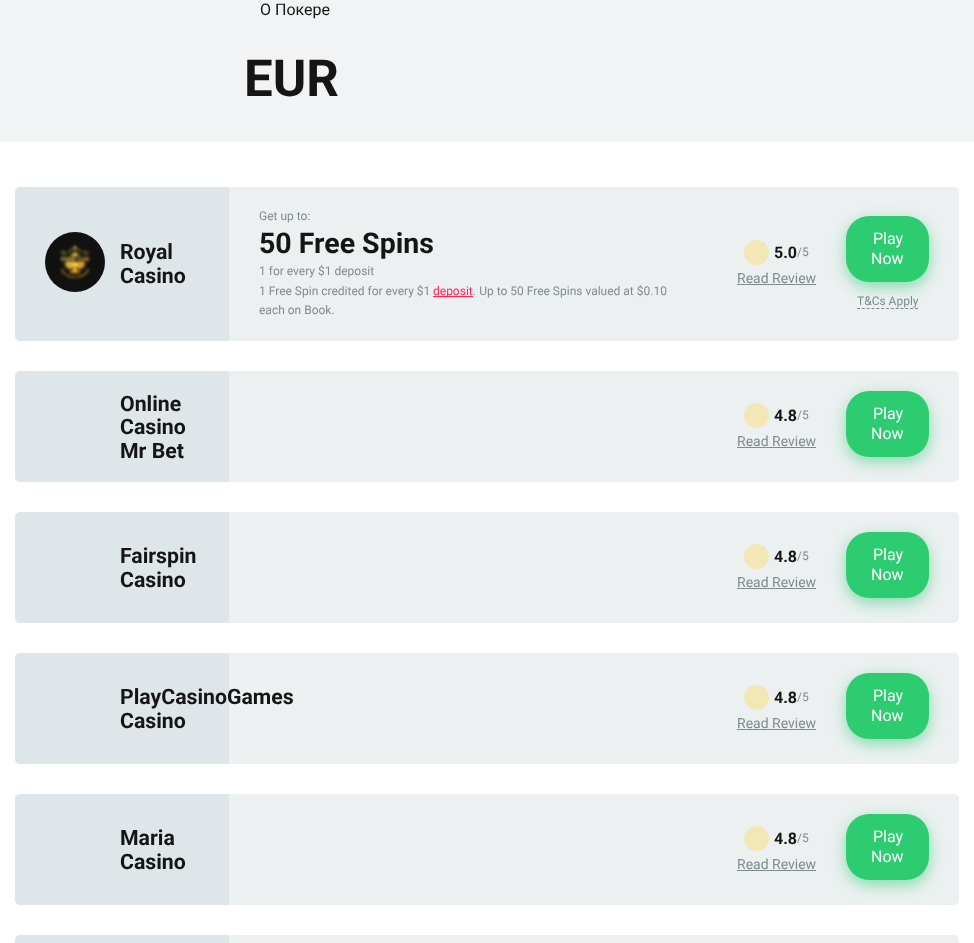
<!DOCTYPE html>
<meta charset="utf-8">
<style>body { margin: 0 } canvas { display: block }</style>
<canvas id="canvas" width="974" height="943"></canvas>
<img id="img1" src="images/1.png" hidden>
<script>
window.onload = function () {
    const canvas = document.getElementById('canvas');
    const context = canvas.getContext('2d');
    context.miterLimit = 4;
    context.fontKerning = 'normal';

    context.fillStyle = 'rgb(255, 255, 255)';
    context.fillRect(0, 0, 974, 943);
    context.fillStyle = 'rgb(241, 243, 244)';
    context.fillRect(0, 0, 974, 142);
    context.fillStyle = 'rgb(236, 240, 241)';
    context.beginPath();
    context.roundRect(15, 187, 944, 154, 5);
    context.fill();
    context.fillStyle = 'rgb(223, 230, 233)';
    context.beginPath();
    context.roundRect(15, 187, 214, 154, [5, 0, 0, 5]);
    context.fill();
    context.drawImage(document.getElementById('img1'), 45, 232, 60, 60);
    context.fillStyle = 'rgb(255, 36, 83)';
    context.fillRect(433, 296, 40, 1);
    context.fillStyle = 'rgb(242, 231, 181)';
    context.beginPath();
    context.arc(756.5, 252.5, 12.5, 0, 2 * Math.PI);
    context.fill();
    context.fillStyle = 'rgb(127, 140, 141)';
    context.fillRect(737, 284, 79, 1);
    context.fillStyle = 'rgba(46, 204, 113, 0.55)';
    context.filter = 'blur(7.5px)';
    context.beginPath();
    context.roundRect(846, 221, 83, 66, 23);
    context.fill();
    context.filter = 'none';
    context.fillStyle = 'rgb(46, 204, 113)';
    context.beginPath();
    context.roundRect(846, 216, 83, 66, 23);
    context.fill();
    context.beginPath();
    context.moveTo(857, 308.5);
    context.lineTo(918, 308.5);
    context.strokeStyle = 'rgb(127, 140, 141)';
    context.setLineDash([3, 1.83]);
    context.stroke();
    context.fillStyle = 'rgb(236, 240, 241)';
    context.beginPath();
    context.roundRect(15, 371, 944, 111, 5);
    context.fill();
    context.fillStyle = 'rgb(223, 230, 233)';
    context.beginPath();
    context.roundRect(15, 371, 214, 111, [5, 0, 0, 5]);
    context.fill();
    context.fillStyle = 'rgb(242, 231, 181)';
    context.beginPath();
    context.arc(756.5, 415.5, 12.5, 0, 2 * Math.PI);
    context.fill();
    context.fillStyle = 'rgb(127, 140, 141)';
    context.fillRect(737, 447, 79, 1);
    context.fillStyle = 'rgba(46, 204, 113, 0.55)';
    context.filter = 'blur(7.5px)';
    context.beginPath();
    context.roundRect(846, 396, 83, 66, 23);
    context.fill();
    context.filter = 'none';
    context.fillStyle = 'rgb(46, 204, 113)';
    context.beginPath();
    context.roundRect(846, 391, 83, 66, 23);
    context.fill();
    context.fillStyle = 'rgb(236, 240, 241)';
    context.beginPath();
    context.roundRect(15, 512, 944, 111, 5);
    context.fill();
    context.fillStyle = 'rgb(223, 230, 233)';
    context.beginPath();
    context.roundRect(15, 512, 214, 111, [5, 0, 0, 5]);
    context.fill();
    context.fillStyle = 'rgb(242, 231, 181)';
    context.beginPath();
    context.arc(756.5, 556.5, 12.5, 0, 2 * Math.PI);
    context.fill();
    context.fillStyle = 'rgb(127, 140, 141)';
    context.fillRect(737, 588, 79, 1);
    context.fillStyle = 'rgba(46, 204, 113, 0.55)';
    context.filter = 'blur(7.5px)';
    context.beginPath();
    context.roundRect(846, 537, 83, 66, 23);
    context.fill();
    context.filter = 'none';
    context.fillStyle = 'rgb(46, 204, 113)';
    context.beginPath();
    context.roundRect(846, 532, 83, 66, 23);
    context.fill();
    context.fillStyle = 'rgb(236, 240, 241)';
    context.beginPath();
    context.roundRect(15, 653, 944, 111, 5);
    context.fill();
    context.fillStyle = 'rgb(223, 230, 233)';
    context.beginPath();
    context.roundRect(15, 653, 214, 111, [5, 0, 0, 5]);
    context.fill();
    context.fillStyle = 'rgb(242, 231, 181)';
    context.beginPath();
    context.arc(756.5, 697.5, 12.5, 0, 2 * Math.PI);
    context.fill();
    context.fillStyle = 'rgb(127, 140, 141)';
    context.fillRect(737, 729, 79, 1);
    context.fillStyle = 'rgba(46, 204, 113, 0.55)';
    context.filter = 'blur(7.5px)';
    context.beginPath();
    context.roundRect(846, 678, 83, 66, 23);
    context.fill();
    context.filter = 'none';
    context.fillStyle = 'rgb(46, 204, 113)';
    context.beginPath();
    context.roundRect(846, 673, 83, 66, 23);
    context.fill();
    context.fillStyle = 'rgb(236, 240, 241)';
    context.beginPath();
    context.roundRect(15, 794, 944, 111, 5);
    context.fill();
    context.fillStyle = 'rgb(223, 230, 233)';
    context.beginPath();
    context.roundRect(15, 794, 214, 111, [5, 0, 0, 5]);
    context.fill();
    context.fillStyle = 'rgb(242, 231, 181)';
    context.beginPath();
    context.arc(756.5, 838.5, 12.5, 0, 2 * Math.PI);
    context.fill();
    context.fillStyle = 'rgb(127, 140, 141)';
    context.fillRect(737, 870, 79, 1);
    context.fillStyle = 'rgba(46, 204, 113, 0.55)';
    context.filter = 'blur(7.5px)';
    context.beginPath();
    context.roundRect(846, 819, 83, 66, 23);
    context.fill();
    context.filter = 'none';
    context.fillStyle = 'rgb(46, 204, 113)';
    context.beginPath();
    context.roundRect(846, 814, 83, 66, 23);
    context.fill();
    context.fillStyle = 'rgb(236, 240, 241)';
    context.beginPath();
    context.roundRect(15, 935, 944, 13, 5);
    context.fill();
    context.fillStyle = 'rgb(223, 230, 233)';
    context.beginPath();
    context.moveTo(20, 935);
    context.lineTo(229, 935);
    context.lineTo(229, 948);
    context.lineTo(20, 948);
    context.bezierCurveTo(17, 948, 15, 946, 15, 943);
    context.lineTo(15, 940);
    context.bezierCurveTo(15, 937, 17, 935, 20, 935);
    context.closePath();
    context.fill();
    context.font = '16px Roboto';
    context.fillStyle = 'rgb(21, 21, 21)';
    context.fillText('О Покере', 260, 15);
    context.font = 'bold 51px Roboto';
    context.fillText('EUR', 244, 96);
    context.font = 'bold 21.25px Roboto';
    context.fillText('Royal', 120, 259);
    context.fillText('Casino', 120, 283);
    context.font = '12px Roboto';
    context.fillStyle = 'rgb(127, 140, 141)';
    context.fillText('Get up to:', 259, 220);
    context.font = 'bold 28.5px Roboto';
    context.fillStyle = 'rgb(21, 21, 21)';
    context.fillText('50 Free Spins', 259, 253);
    context.font = '12px Roboto';
    context.fillStyle = 'rgb(127, 140, 141)';
    context.fillText('1 for every $1 deposit', 259, 275);
    context.fillText('1 Free Spin credited for every $1', 259, 295);
    context.fillStyle = 'rgb(255, 36, 83)';
    context.fillText('deposit', 433, 295);
    context.fillStyle = 'rgb(127, 140, 141)';
    context.fillText('. Up to 50 Free Spins valued at $0.10', 473, 295);
    context.fillText('each on Book.', 259, 314);
    context.font = 'bold 16px Roboto';
    context.fillStyle = 'rgb(21, 21, 21)';
    context.fillText('5.0', 774, 258);
    context.font = '12px Roboto';
    context.fillStyle = 'rgb(127, 140, 141)';
    context.fillText('/5', 797, 256);
    context.font = '14px Roboto';
    context.fillText('Read Review', 737, 283);
    context.font = '16px Roboto';
    context.fillStyle = 'rgb(255, 255, 255)';
    context.fillText('Play', 873, 244);
    context.fillText('Now', 871, 264);
    context.font = '12px Roboto';
    context.fillStyle = 'rgb(127, 140, 141)';
    context.fillText('T&Cs Apply', 857, 305);
    context.font = 'bold 21.25px Roboto';
    context.fillStyle = 'rgb(21, 21, 21)';
    context.fillText('Online', 120, 411);
    context.fillText('Casino', 120, 434);
    context.fillText('Mr Bet', 120, 458);
    context.font = 'bold 16px Roboto';
    context.fillText('4.8', 774, 421);
    context.font = '12px Roboto';
    context.fillStyle = 'rgb(127, 140, 141)';
    context.fillText('/5', 797, 419);
    context.font = '14px Roboto';
    context.fillText('Read Review', 737, 446);
    context.font = '16px Roboto';
    context.fillStyle = 'rgb(255, 255, 255)';
    context.fillText('Play', 873, 419);
    context.fillText('Now', 871, 439);
    context.font = 'bold 21.25px Roboto';
    context.fillStyle = 'rgb(21, 21, 21)';
    context.fillText('Fairspin', 120, 563);
    context.fillText('Casino', 120, 587);
    context.font = 'bold 16px Roboto';
    context.fillText('4.8', 774, 562);
    context.font = '12px Roboto';
    context.fillStyle = 'rgb(127, 140, 141)';
    context.fillText('/5', 797, 560);
    context.font = '14px Roboto';
    context.fillText('Read Review', 737, 587);
    context.font = '16px Roboto';
    context.fillStyle = 'rgb(255, 255, 255)';
    context.fillText('Play', 873, 560);
    context.fillText('Now', 871, 580);
    context.font = 'bold 21.25px Roboto';
    context.fillStyle = 'rgb(21, 21, 21)';
    context.fillText('PlayCasinoGames', 120, 704);
    context.fillText('Casino', 120, 728);
    context.font = 'bold 16px Roboto';
    context.fillText('4.8', 774, 703);
    context.font = '12px Roboto';
    context.fillStyle = 'rgb(127, 140, 141)';
    context.fillText('/5', 797, 701);
    context.font = '14px Roboto';
    context.fillText('Read Review', 737, 728);
    context.font = '16px Roboto';
    context.fillStyle = 'rgb(255, 255, 255)';
    context.fillText('Play', 873, 701);
    context.fillText('Now', 871, 721);
    context.font = 'bold 21.25px Roboto';
    context.fillStyle = 'rgb(21, 21, 21)';
    context.fillText('Maria', 120, 845);
    context.fillText('Casino', 120, 869);
    context.font = 'bold 16px Roboto';
    context.fillText('4.8', 774, 844);
    context.font = '12px Roboto';
    context.fillStyle = 'rgb(127, 140, 141)';
    context.fillText('/5', 797, 842);
    context.font = '14px Roboto';
    context.fillText('Read Review', 737, 869);
    context.font = '16px Roboto';
    context.fillStyle = 'rgb(255, 255, 255)';
    context.fillText('Play', 873, 842);
    context.fillText('Now', 871, 862);
};
</script>
